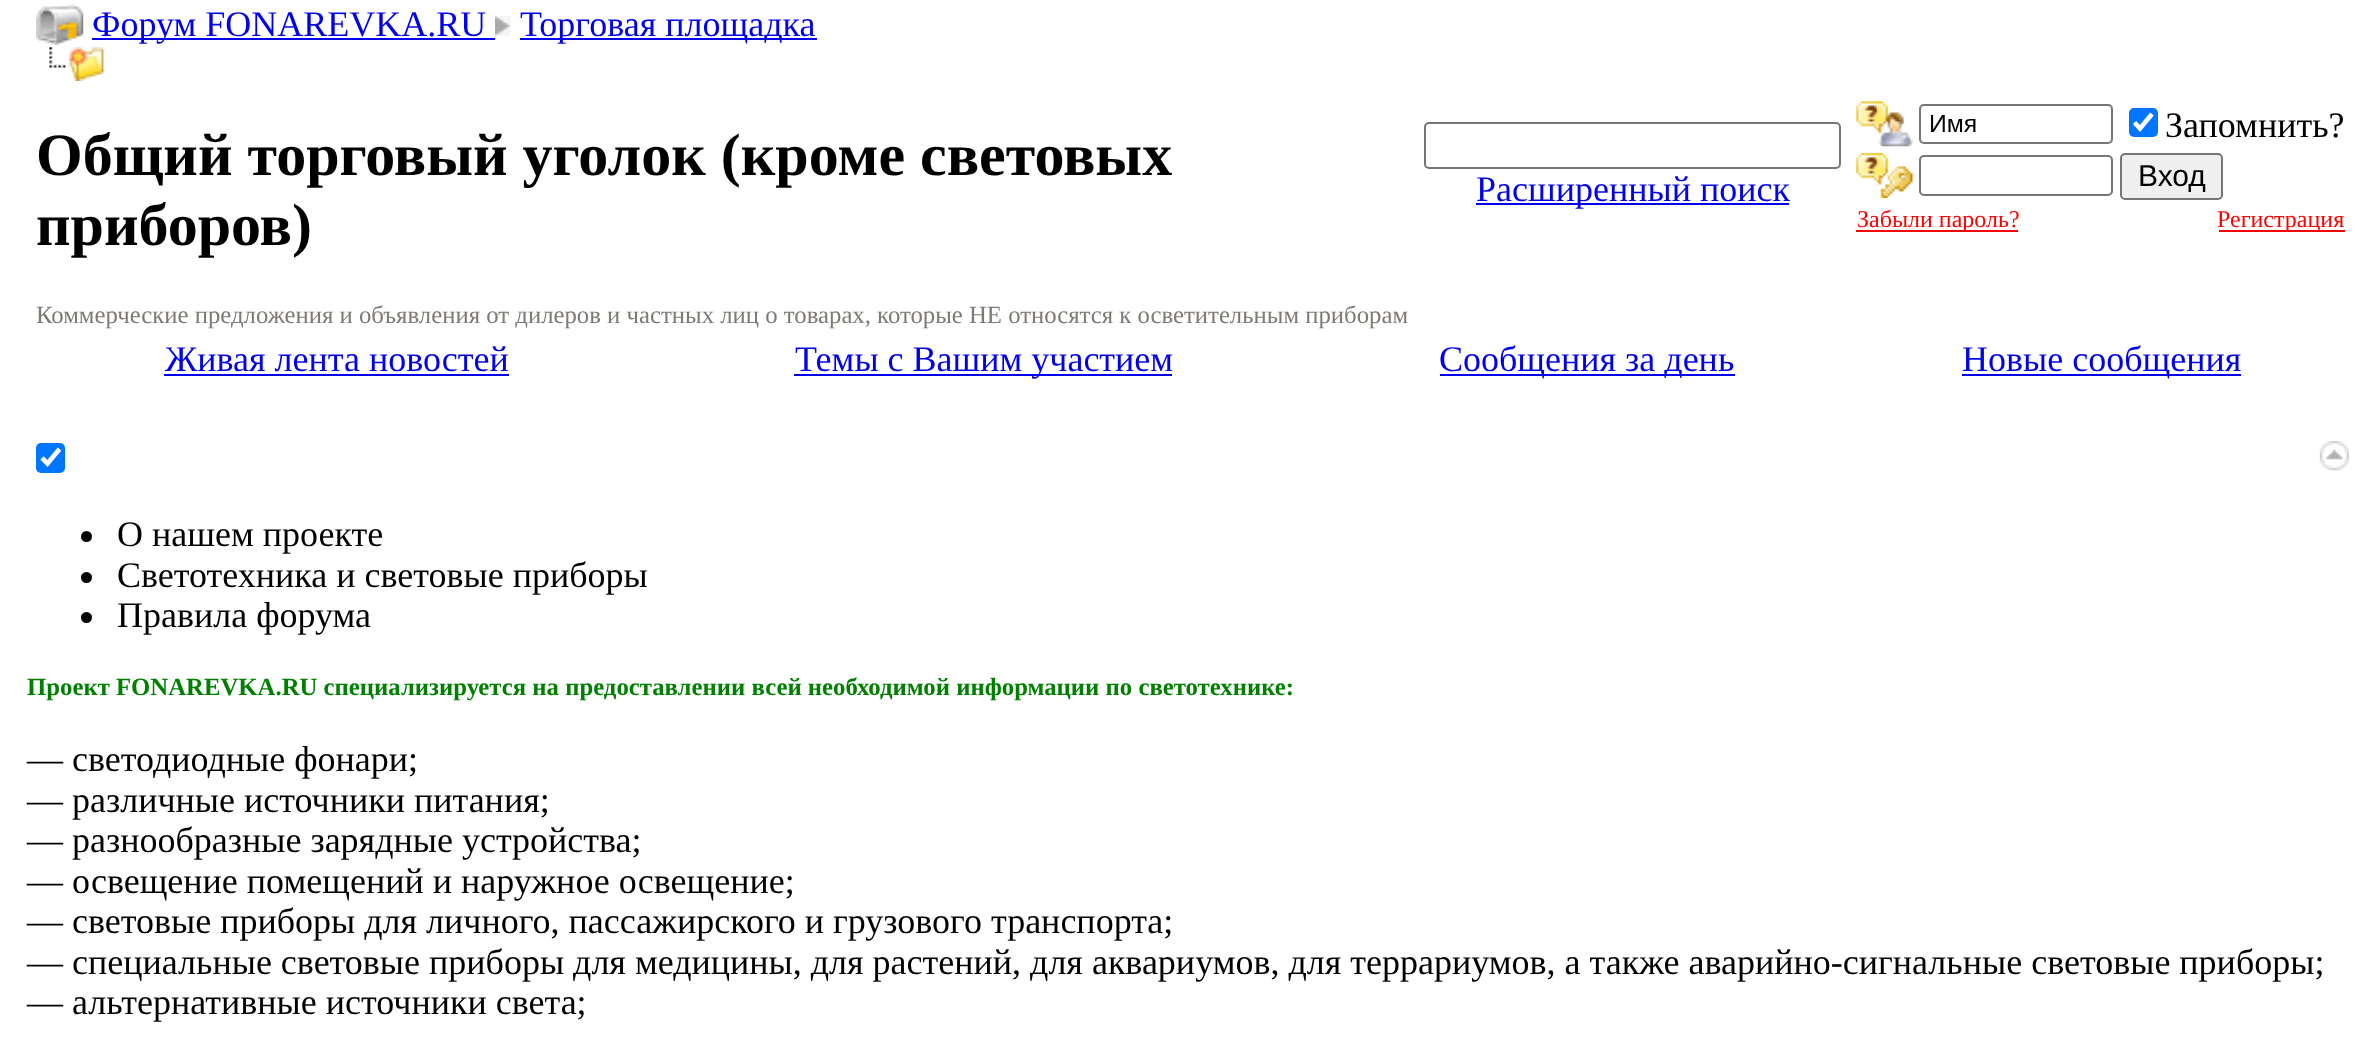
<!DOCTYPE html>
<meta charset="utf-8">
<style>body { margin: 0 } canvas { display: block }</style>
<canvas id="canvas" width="2380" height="1047"></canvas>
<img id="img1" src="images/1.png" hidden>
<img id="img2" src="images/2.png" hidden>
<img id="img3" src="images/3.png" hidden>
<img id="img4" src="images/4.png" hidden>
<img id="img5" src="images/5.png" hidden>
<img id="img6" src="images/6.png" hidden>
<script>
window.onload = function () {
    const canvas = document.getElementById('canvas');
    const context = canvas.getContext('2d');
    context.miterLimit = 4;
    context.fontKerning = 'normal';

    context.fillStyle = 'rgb(255, 255, 255)';
    context.fillRect(0, 0, 2380, 1047);
    context.drawImage(document.getElementById('img1'), 36, 4, 48, 41);
    context.fillStyle = 'rgb(0, 0, 238)';
    context.fillRect(92, 38, 403, 2);
    context.drawImage(document.getElementById('img2'), 495, 15, 16, 21);
    context.fillRect(520, 38, 297, 2);
    context.drawImage(document.getElementById('img3'), 49, 47, 55, 34);
    context.beginPath();
    context.roundRect(1425, 123, 415, 45, 4);
    context.strokeStyle = 'rgb(118, 118, 118)';
    context.lineWidth = 2;
    context.stroke();
    context.fillRect(1476, 203, 313, 2);
    context.drawImage(document.getElementById('img4'), 1856, 101, 57, 46);
    context.beginPath();
    context.roundRect(1920, 105, 192, 38, 4);
    context.stroke();
    context.fillStyle = 'rgb(0, 117, 255)';
    context.beginPath();
    context.roundRect(2129, 108, 29, 29, 5);
    context.fill();
    context.beginPath();
    context.moveTo(2134.5, 122.5);
    context.lineTo(2140, 128.5);
    context.lineTo(2152, 114);
    context.strokeStyle = 'rgb(255, 255, 255)';
    context.lineWidth = 4.7;
    context.stroke();
    context.drawImage(document.getElementById('img5'), 1856, 153, 57, 45);
    context.beginPath();
    context.roundRect(1920, 156, 192, 39, 4);
    context.strokeStyle = 'rgb(118, 118, 118)';
    context.lineWidth = 2;
    context.stroke();
    context.fillStyle = 'rgb(239, 239, 239)';
    context.beginPath();
    context.roundRect(2121, 154, 101, 45, 4);
    context.fill();
    context.stroke();
    context.fillStyle = 'rgb(255, 0, 0)';
    context.fillRect(1856, 230, 162, 2);
    context.fillRect(2219, 230, 126, 2);
    context.fillStyle = 'rgb(0, 0, 238)';
    context.fillRect(164, 374, 345, 2);
    context.fillRect(794, 374, 378, 2);
    context.fillRect(1440, 374, 295, 2);
    context.fillRect(1962, 374, 279, 2);
    context.fillStyle = 'rgb(0, 117, 255)';
    context.beginPath();
    context.roundRect(36, 443, 29, 30, 5);
    context.fill();
    context.beginPath();
    context.moveTo(42, 458);
    context.lineTo(47.5, 463.5);
    context.lineTo(59.5, 449);
    context.strokeStyle = 'rgb(255, 255, 255)';
    context.lineWidth = 4.7;
    context.stroke();
    context.drawImage(document.getElementById('img6'), 2319, 441, 30, 30);
    context.fillStyle = 'rgb(0, 0, 0)';
    context.beginPath();
    context.arc(86.5, 536.5, 5.5, 0, 2 * Math.PI);
    context.fill();
    context.beginPath();
    context.arc(86.5, 577.5, 5.5, 0, 2 * Math.PI);
    context.fill();
    context.beginPath();
    context.arc(86.5, 617.5, 5.5, 0, 2 * Math.PI);
    context.fill();
    context.font = '36px Liberation Serif';
    context.fillStyle = 'rgb(0, 0, 238)';
    context.fillText('Форум FONAREVKA.RU', 92, 36);
    context.fillText('Торговая площадка', 520, 36);
    context.font = 'bold 60px Liberation Serif';
    context.fillStyle = 'rgb(0, 0, 0)';
    context.fillText('Общий торговый уголок (кроме световых', 36, 175);
    context.fillText('приборов)', 36, 245);
    context.font = '24.75px Liberation Serif';
    context.fillStyle = 'rgb(125, 121, 116)';
    context.fillText('Коммерческие предложения и объявления от дилеров и частных лиц о товарах, которые НЕ относятся к осветительным приборам', 36, 323);
    context.font = '36px Liberation Serif';
    context.fillStyle = 'rgb(0, 0, 238)';
    context.fillText('Расширенный поиск', 1476, 201);
    context.font = '24.75px Liberation Sans';
    context.fillStyle = 'rgb(0, 0, 0)';
    context.fillText('Имя', 1929, 132);
    context.font = '36px Liberation Serif';
    context.fillText('Запомнить?', 2165, 137);
    context.font = '30px Liberation Sans';
    context.fillText('Вход', 2138, 186);
    context.font = '24px Liberation Serif';
    context.fillStyle = 'rgb(255, 0, 0)';
    context.fillText('Забыли пароль?', 1857, 227);
    context.fillText('Регистрация', 2217, 227);
    context.font = '36px Liberation Serif';
    context.fillStyle = 'rgb(0, 0, 238)';
    context.fillText('Живая лента новостей', 165, 371);
    context.fillText('Темы с Вашим участием', 795, 371);
    context.fillText('Сообщения за день', 1439, 371);
    context.fillText('Новые сообщения', 1962, 371);
    context.fillStyle = 'rgb(0, 0, 0)';
    context.fillText('О нашем проекте', 117, 546);
    context.fillText('Светотехника и световые приборы', 117, 587);
    context.fillText('Правила форума', 117, 627);
    context.font = 'bold 24.75px Liberation Serif';
    context.fillStyle = 'rgb(0, 128, 0)';
    context.fillText('Проект FONAREVKA.RU специализируется на предоставлении всей необходимой информации по светотехнике:', 27, 695);
    context.font = '36px Liberation Serif';
    context.fillStyle = 'rgb(0, 0, 0)';
    context.fillText('— светодиодные фонари;', 27, 771);
    context.fillText('— различные источники питания;', 27, 812);
    context.fillText('— разнообразные зарядные устройства;', 27, 852);
    context.fillText('— освещение помещений и наружное освещение;', 27, 893);
    context.fillText('— световые приборы для личного, пассажирского и грузового транспорта;', 27, 933);
    context.fillText('— специальные световые приборы для медицины, для растений, для аквариумов, для террариумов, а также аварийно-сигнальные световые приборы;', 27, 974);
    context.fillText('— альтернативные источники света;', 27, 1014);
};
</script>
